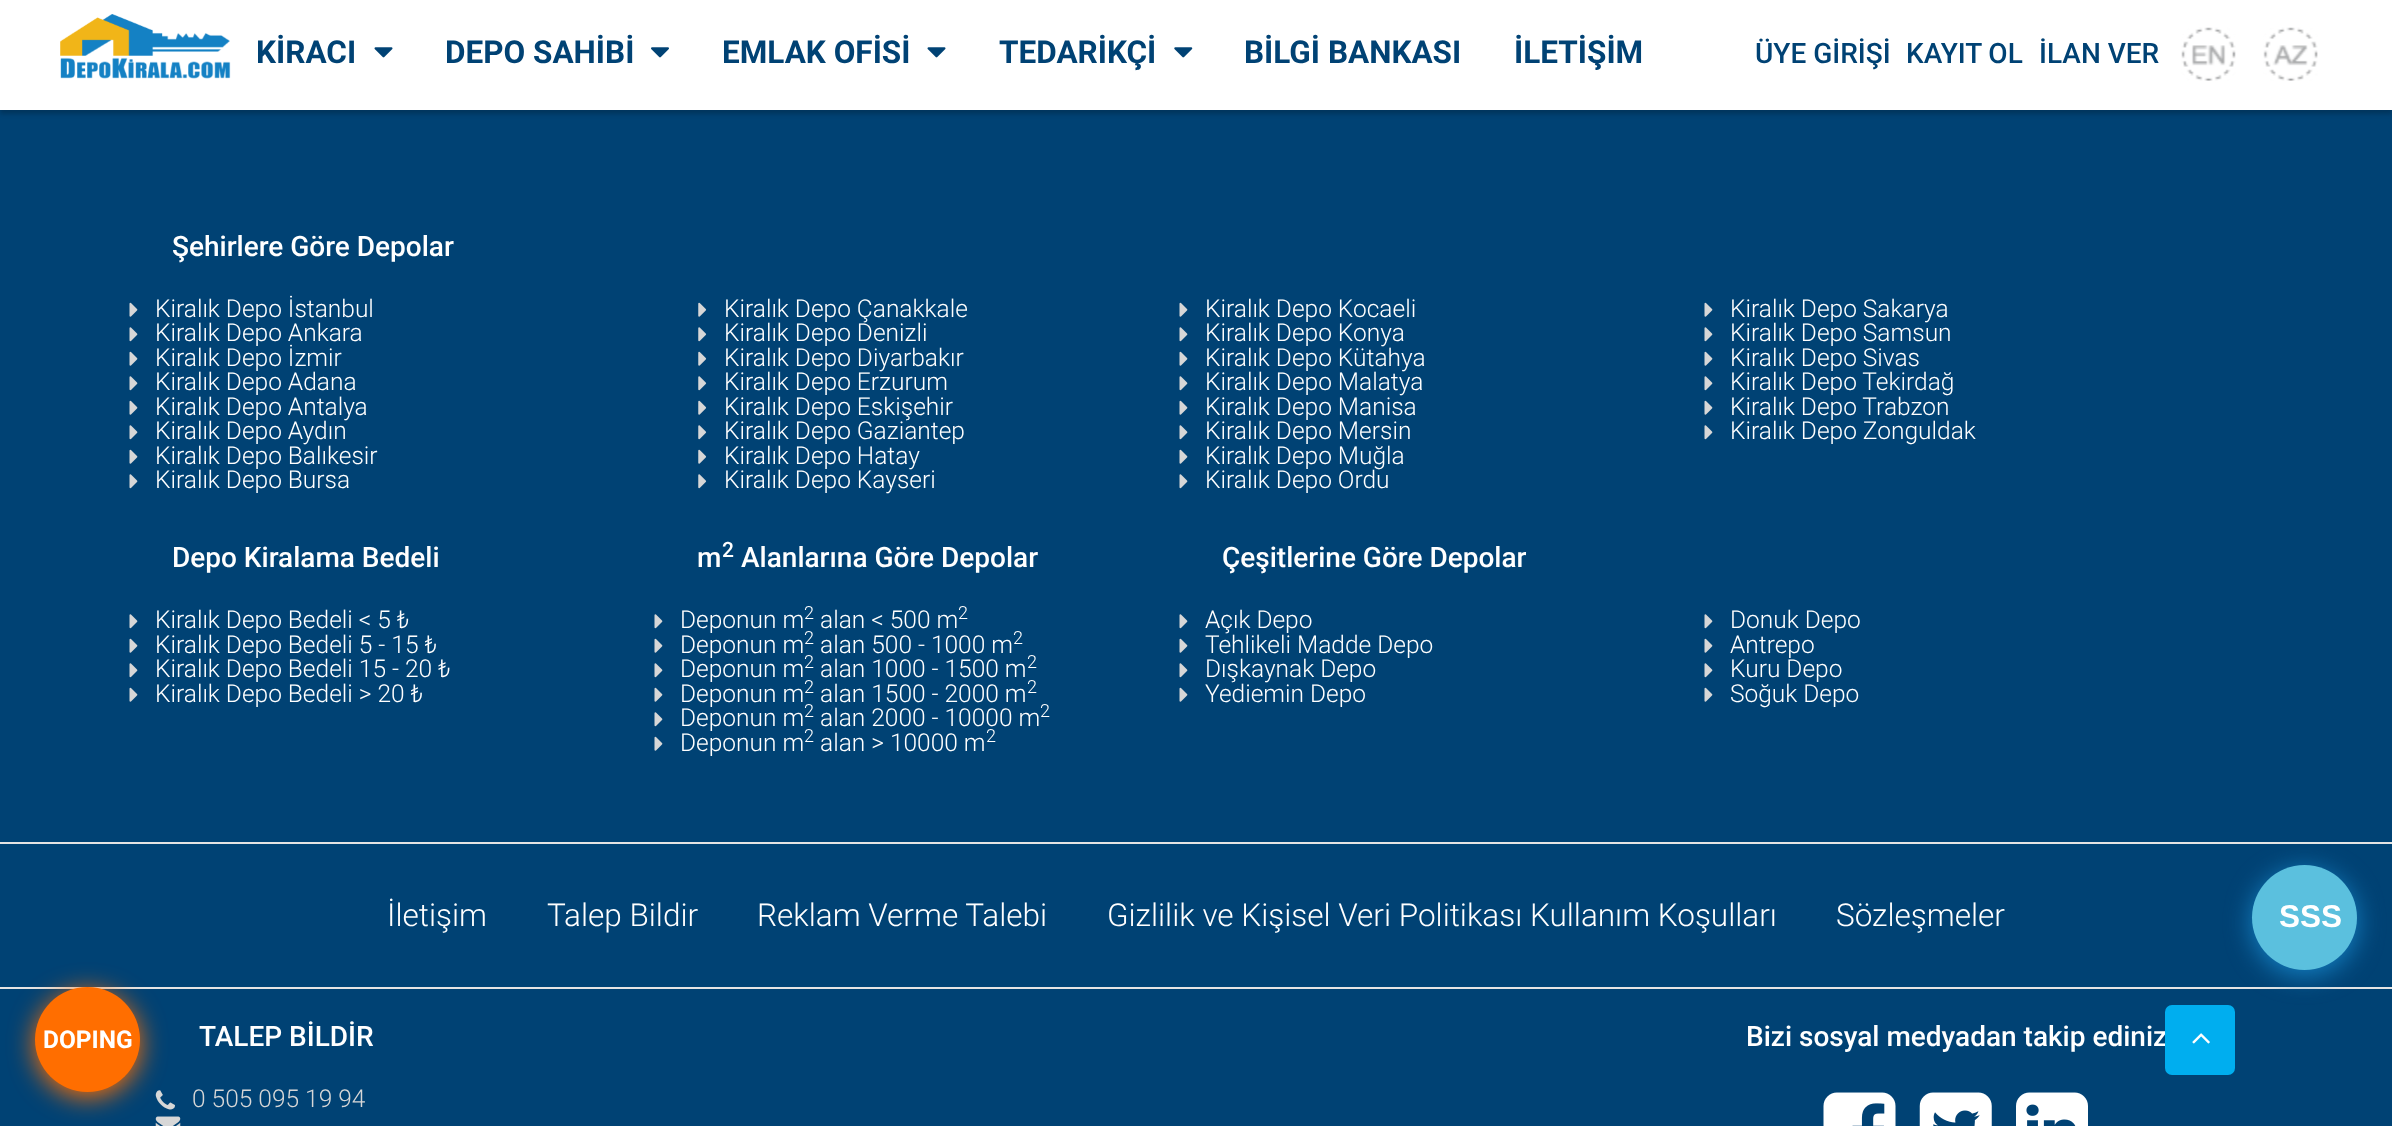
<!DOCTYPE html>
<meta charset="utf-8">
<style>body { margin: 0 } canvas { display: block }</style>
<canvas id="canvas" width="2392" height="1126"></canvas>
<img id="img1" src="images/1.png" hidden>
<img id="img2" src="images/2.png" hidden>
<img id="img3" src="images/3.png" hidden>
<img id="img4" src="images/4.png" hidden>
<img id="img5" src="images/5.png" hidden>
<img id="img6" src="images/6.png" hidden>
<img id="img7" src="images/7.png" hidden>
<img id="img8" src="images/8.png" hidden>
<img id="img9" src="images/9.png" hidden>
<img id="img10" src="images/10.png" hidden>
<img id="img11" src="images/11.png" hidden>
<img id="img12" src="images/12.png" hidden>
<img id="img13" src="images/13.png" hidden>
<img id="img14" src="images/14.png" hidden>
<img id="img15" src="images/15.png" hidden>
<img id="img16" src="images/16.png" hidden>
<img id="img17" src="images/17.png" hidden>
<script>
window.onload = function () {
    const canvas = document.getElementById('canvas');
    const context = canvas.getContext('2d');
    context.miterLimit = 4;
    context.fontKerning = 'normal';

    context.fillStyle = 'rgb(0, 66, 116)';
    context.fillRect(0, 0, 2392, 1126);
    context.fillStyle = 'rgba(0, 0, 0, 0.2)';
    context.filter = 'blur(2px)';
    context.beginPath();
    context.rect(0, 4, 2392, 110);
    context.fill();
    context.filter = 'none';
    context.fillStyle = 'rgb(255, 255, 255)';
    context.fillRect(0, 0, 2392, 110);
    context.drawImage(document.getElementById('img1'), 60, 14, 171, 65);
    context.drawImage(document.getElementById('img2'), 374, 47, 19, 11);
    context.drawImage(document.getElementById('img3'), 651, 47, 18, 11);
    context.drawImage(document.getElementById('img4'), 927, 47, 19, 11);
    context.drawImage(document.getElementById('img5'), 1174, 47, 19, 11);
    context.drawImage(document.getElementById('img6'), 2181, 27, 55, 54);
    context.drawImage(document.getElementById('img7'), 2263, 27, 55, 54);
    context.drawImage(document.getElementById('img8'), 129, 302, 9, 15);
    context.drawImage(document.getElementById('img9'), 129, 327, 9, 15);
    context.drawImage(document.getElementById('img8'), 129, 351, 9, 15);
    context.drawImage(document.getElementById('img9'), 129, 376, 9, 15);
    context.drawImage(document.getElementById('img8'), 129, 400, 9, 15);
    context.drawImage(document.getElementById('img9'), 129, 425, 9, 15);
    context.drawImage(document.getElementById('img8'), 129, 449, 9, 15);
    context.drawImage(document.getElementById('img9'), 129, 474, 9, 15);
    context.drawImage(document.getElementById('img10'), 698, 302, 9, 15);
    context.drawImage(document.getElementById('img11'), 698, 327, 9, 15);
    context.drawImage(document.getElementById('img10'), 698, 351, 9, 15);
    context.drawImage(document.getElementById('img11'), 698, 376, 9, 15);
    context.drawImage(document.getElementById('img10'), 698, 400, 9, 15);
    context.drawImage(document.getElementById('img11'), 698, 425, 9, 15);
    context.drawImage(document.getElementById('img10'), 698, 449, 9, 15);
    context.drawImage(document.getElementById('img11'), 698, 474, 9, 15);
    context.drawImage(document.getElementById('img8'), 1179, 302, 9, 15);
    context.drawImage(document.getElementById('img9'), 1179, 327, 9, 15);
    context.drawImage(document.getElementById('img8'), 1179, 351, 9, 15);
    context.drawImage(document.getElementById('img9'), 1179, 376, 9, 15);
    context.drawImage(document.getElementById('img8'), 1179, 400, 9, 15);
    context.drawImage(document.getElementById('img9'), 1179, 425, 9, 15);
    context.drawImage(document.getElementById('img8'), 1179, 449, 9, 15);
    context.drawImage(document.getElementById('img9'), 1179, 474, 9, 15);
    context.drawImage(document.getElementById('img8'), 1704, 302, 9, 15);
    context.drawImage(document.getElementById('img9'), 1704, 327, 9, 15);
    context.drawImage(document.getElementById('img8'), 1704, 351, 9, 15);
    context.drawImage(document.getElementById('img9'), 1704, 376, 9, 15);
    context.drawImage(document.getElementById('img8'), 1704, 400, 9, 15);
    context.drawImage(document.getElementById('img9'), 1704, 425, 9, 15);
    context.drawImage(document.getElementById('img9'), 129, 614, 9, 15);
    context.drawImage(document.getElementById('img8'), 129, 638, 9, 15);
    context.drawImage(document.getElementById('img9'), 129, 663, 9, 15);
    context.drawImage(document.getElementById('img8'), 129, 687, 9, 15);
    context.drawImage(document.getElementById('img9'), 654, 614, 9, 15);
    context.drawImage(document.getElementById('img8'), 654, 638, 9, 15);
    context.drawImage(document.getElementById('img9'), 654, 663, 9, 15);
    context.drawImage(document.getElementById('img8'), 654, 687, 9, 15);
    context.drawImage(document.getElementById('img9'), 654, 712, 9, 15);
    context.drawImage(document.getElementById('img8'), 654, 736, 9, 15);
    context.drawImage(document.getElementById('img9'), 1179, 614, 9, 15);
    context.drawImage(document.getElementById('img8'), 1179, 638, 9, 15);
    context.drawImage(document.getElementById('img9'), 1179, 663, 9, 15);
    context.drawImage(document.getElementById('img8'), 1179, 687, 9, 15);
    context.drawImage(document.getElementById('img9'), 1704, 614, 9, 15);
    context.drawImage(document.getElementById('img8'), 1704, 638, 9, 15);
    context.drawImage(document.getElementById('img9'), 1704, 663, 9, 15);
    context.drawImage(document.getElementById('img8'), 1704, 687, 9, 15);
    context.fillStyle = 'rgb(228, 228, 228)';
    context.fillRect(0, 842, 2392, 2);
    context.fillRect(0, 987, 2392, 2);
    context.drawImage(document.getElementById('img12'), 155, 1090, 20, 20);
    context.drawImage(document.getElementById('img13'), 155, 1116, 26, 10);
    context.drawImage(document.getElementById('img14'), 1823, 1092, 73, 34);
    context.drawImage(document.getElementById('img15'), 1919, 1092, 73, 34);
    context.drawImage(document.getElementById('img16'), 2016, 1092, 72, 34);
    context.fillStyle = 'rgb(255, 110, 0)';
    context.filter = 'blur(13px)';
    context.beginPath();
    context.roundRect(35, 992, 105, 105, 52.5);
    context.fill();
    context.filter = 'none';
    context.beginPath();
    context.arc(87.5, 1039.5, 52.5, 0, 2 * Math.PI);
    context.fill();
    context.font = 'bold 31.5px Roboto';
    context.fillStyle = 'rgb(0, 66, 116)';
    context.fillText('KİRACI', 256, 63);
    context.fillText('DEPO SAHİBİ', 445, 63);
    context.fillText('EMLAK OFİSİ', 722, 63);
    context.fillText('TEDARİKÇİ', 999, 63);
    context.fillText('BİLGİ BANKASI', 1244, 63);
    context.fillText('İLETİŞİM', 1514, 63);
    context.font = '500 28px Roboto';
    context.fillText('ÜYE GİRİŞİ', 1755, 63);
    context.wordSpacing = '-1px';
    context.fillText('KAYIT OL', 1906, 63);
    context.wordSpacing = '0px';
    context.fillText('İLAN VER', 2039, 63);
    context.fillStyle = 'rgb(255, 255, 255)';
    context.fillText('Şehirlere Göre Depolar', 172, 256);
    context.font = '300 24.5px Roboto';
    context.fillText('Kiralık Depo İstanbul', 155, 317);
    context.fillText('Kiralık Depo Ankara', 155, 341);
    context.fillText('Kiralık Depo İzmir', 155, 366);
    context.fillText('Kiralık Depo Adana', 155, 390);
    context.fillText('Kiralık Depo Antalya', 155, 415);
    context.fillText('Kiralık Depo Aydın', 155, 439);
    context.fillText('Kiralık Depo Balıkesir', 155, 464);
    context.fillText('Kiralık Depo Bursa', 155, 488);
    context.fillText('Kiralık Depo Çanakkale', 724, 317);
    context.fillText('Kiralık Depo Denizli', 724, 341);
    context.fillText('Kiralık Depo Diyarbakır', 724, 366);
    context.fillText('Kiralık Depo Erzurum', 724, 390);
    context.fillText('Kiralık Depo Eskişehir', 724, 415);
    context.fillText('Kiralık Depo Gaziantep', 724, 439);
    context.fillText('Kiralık Depo Hatay', 724, 464);
    context.fillText('Kiralık Depo Kayseri', 724, 488);
    context.fillText('Kiralık Depo Kocaeli', 1205, 317);
    context.fillText('Kiralık Depo Konya', 1205, 341);
    context.fillText('Kiralık Depo Kütahya', 1205, 366);
    context.fillText('Kiralık Depo Malatya', 1205, 390);
    context.fillText('Kiralık Depo Manisa', 1205, 415);
    context.fillText('Kiralık Depo Mersin', 1205, 439);
    context.fillText('Kiralık Depo Muğla', 1205, 464);
    context.fillText('Kiralık Depo Ordu', 1205, 488);
    context.fillText('Kiralık Depo Sakarya', 1730, 317);
    context.fillText('Kiralık Depo Samsun', 1730, 341);
    context.fillText('Kiralık Depo Sivas', 1730, 366);
    context.fillText('Kiralık Depo Tekirdağ', 1730, 390);
    context.fillText('Kiralık Depo Trabzon', 1730, 415);
    context.fillText('Kiralık Depo Zonguldak', 1730, 439);
    context.font = '500 28px Roboto';
    context.fillText('Depo Kiralama Bedeli', 172, 567);
    context.font = '300 24.5px Roboto';
    context.fillText('Kiralık Depo Bedeli < 5 ₺', 155, 628);
    context.fillText('Kiralık Depo Bedeli 5 - 15 ₺', 155, 653);
    context.fillText('Kiralık Depo Bedeli 15 - 20 ₺', 155, 677);
    context.fillText('Kiralık Depo Bedeli > 20 ₺', 155, 702);
    context.font = '500 28px Roboto';
    context.fillText('m', 697, 567);
    context.font = '500 21px Roboto';
    context.fillText('2', 722, 557);
    context.font = '500 28px Roboto';
    context.fillText('Alanlarına Göre Depolar', 741, 567);
    context.font = '300 24.5px Roboto';
    context.fillText('Deponun m', 680, 628);
    context.font = '300 18px Roboto';
    context.fillText('2', 804, 619);
    context.font = '300 24.5px Roboto';
    context.fillText('alan < 500 m', 820, 628);
    context.font = '300 18px Roboto';
    context.fillText('2', 958, 619);
    context.font = '300 24.5px Roboto';
    context.fillText('Deponun m', 680, 653);
    context.font = '300 18px Roboto';
    context.fillText('2', 804, 644);
    context.font = '300 24.5px Roboto';
    context.fillText('alan 500 - 1000 m', 820, 653);
    context.font = '300 18px Roboto';
    context.fillText('2', 1013, 644);
    context.font = '300 24.5px Roboto';
    context.fillText('Deponun m', 680, 677);
    context.font = '300 18px Roboto';
    context.fillText('2', 804, 668);
    context.font = '300 24.5px Roboto';
    context.fillText('alan 1000 - 1500 m', 820, 677);
    context.font = '300 18px Roboto';
    context.fillText('2', 1027, 668);
    context.font = '300 24.5px Roboto';
    context.fillText('Deponun m', 680, 702);
    context.font = '300 18px Roboto';
    context.fillText('2', 804, 693);
    context.font = '300 24.5px Roboto';
    context.fillText('alan 1500 - 2000 m', 820, 702);
    context.font = '300 18px Roboto';
    context.fillText('2', 1027, 693);
    context.font = '300 24.5px Roboto';
    context.fillText('Deponun m', 680, 726);
    context.font = '300 18px Roboto';
    context.fillText('2', 804, 717);
    context.font = '300 24.5px Roboto';
    context.fillText('alan 2000 - 10000 m', 820, 726);
    context.font = '300 18px Roboto';
    context.fillText('2', 1040, 717);
    context.font = '300 24.5px Roboto';
    context.fillText('Deponun m', 680, 751);
    context.font = '300 18px Roboto';
    context.fillText('2', 804, 742);
    context.font = '300 24.5px Roboto';
    context.fillText('alan > 10000 m', 820, 751);
    context.font = '300 18px Roboto';
    context.fillText('2', 986, 742);
    context.font = '500 28px Roboto';
    context.fillText('Çeşitlerine Göre Depolar', 1222, 567);
    context.font = '300 24.5px Roboto';
    context.fillText('Açık Depo', 1205, 628);
    context.fillText('Tehlikeli Madde Depo', 1205, 653);
    context.fillText('Dışkaynak Depo', 1205, 677);
    context.fillText('Yediemin Depo', 1205, 702);
    context.fillText('Donuk Depo', 1730, 628);
    context.fillText('Antrepo', 1730, 653);
    context.fillText('Kuru Depo', 1730, 677);
    context.fillText('Soğuk Depo', 1730, 702);
    context.font = '300 31.5px Roboto';
    context.fillText('İletişim', 387, 926);
    context.fillText('Talep Bildir', 547, 926);
    context.fillText('Reklam Verme Talebi', 757, 926);
    context.fillText('Gizlilik ve Kişisel Veri Politikası Kullanım Koşulları', 1107, 926);
    context.fillText('Sözleşmeler', 1836, 926);
    context.font = '500 28px Roboto';
    context.fillText('TALEP BİLDİR', 199, 1046);
    context.font = '300 24.5px Roboto';
    context.fillStyle = 'rgb(215, 215, 215)';
    context.fillText('0 505 095 19 94', 192, 1107);
    context.font = '500 28px Roboto';
    context.fillStyle = 'rgb(255, 255, 255)';
    context.fillText('Bizi sosyal medyadan takip ediniz', 1746, 1046);
    context.font = 'bold 24.5px Roboto';
    context.fillText('DOPING', 43, 1048);
    context.fillStyle = 'rgb(0, 174, 239)';
    context.beginPath();
    context.roundRect(2165, 1005, 70, 70, 7);
    context.fill();
    context.fillStyle = 'rgb(20, 129, 196)';
    context.filter = 'blur(13px)';
    context.beginPath();
    context.roundRect(2252, 870, 105, 105, 52.5);
    context.fill();
    context.filter = 'none';
    context.fillStyle = 'rgb(91, 192, 222)';
    context.beginPath();
    context.arc(2304.5, 917.5, 52.5, 0, 2 * Math.PI);
    context.fill();
    context.font = 'bold 31.5px Liberation Sans';
    context.fillStyle = 'rgb(255, 255, 255)';
    context.fillText('SSS', 2279, 927);
    context.drawImage(document.getElementById('img17'), 2192, 1033, 18, 11);
};
</script>
